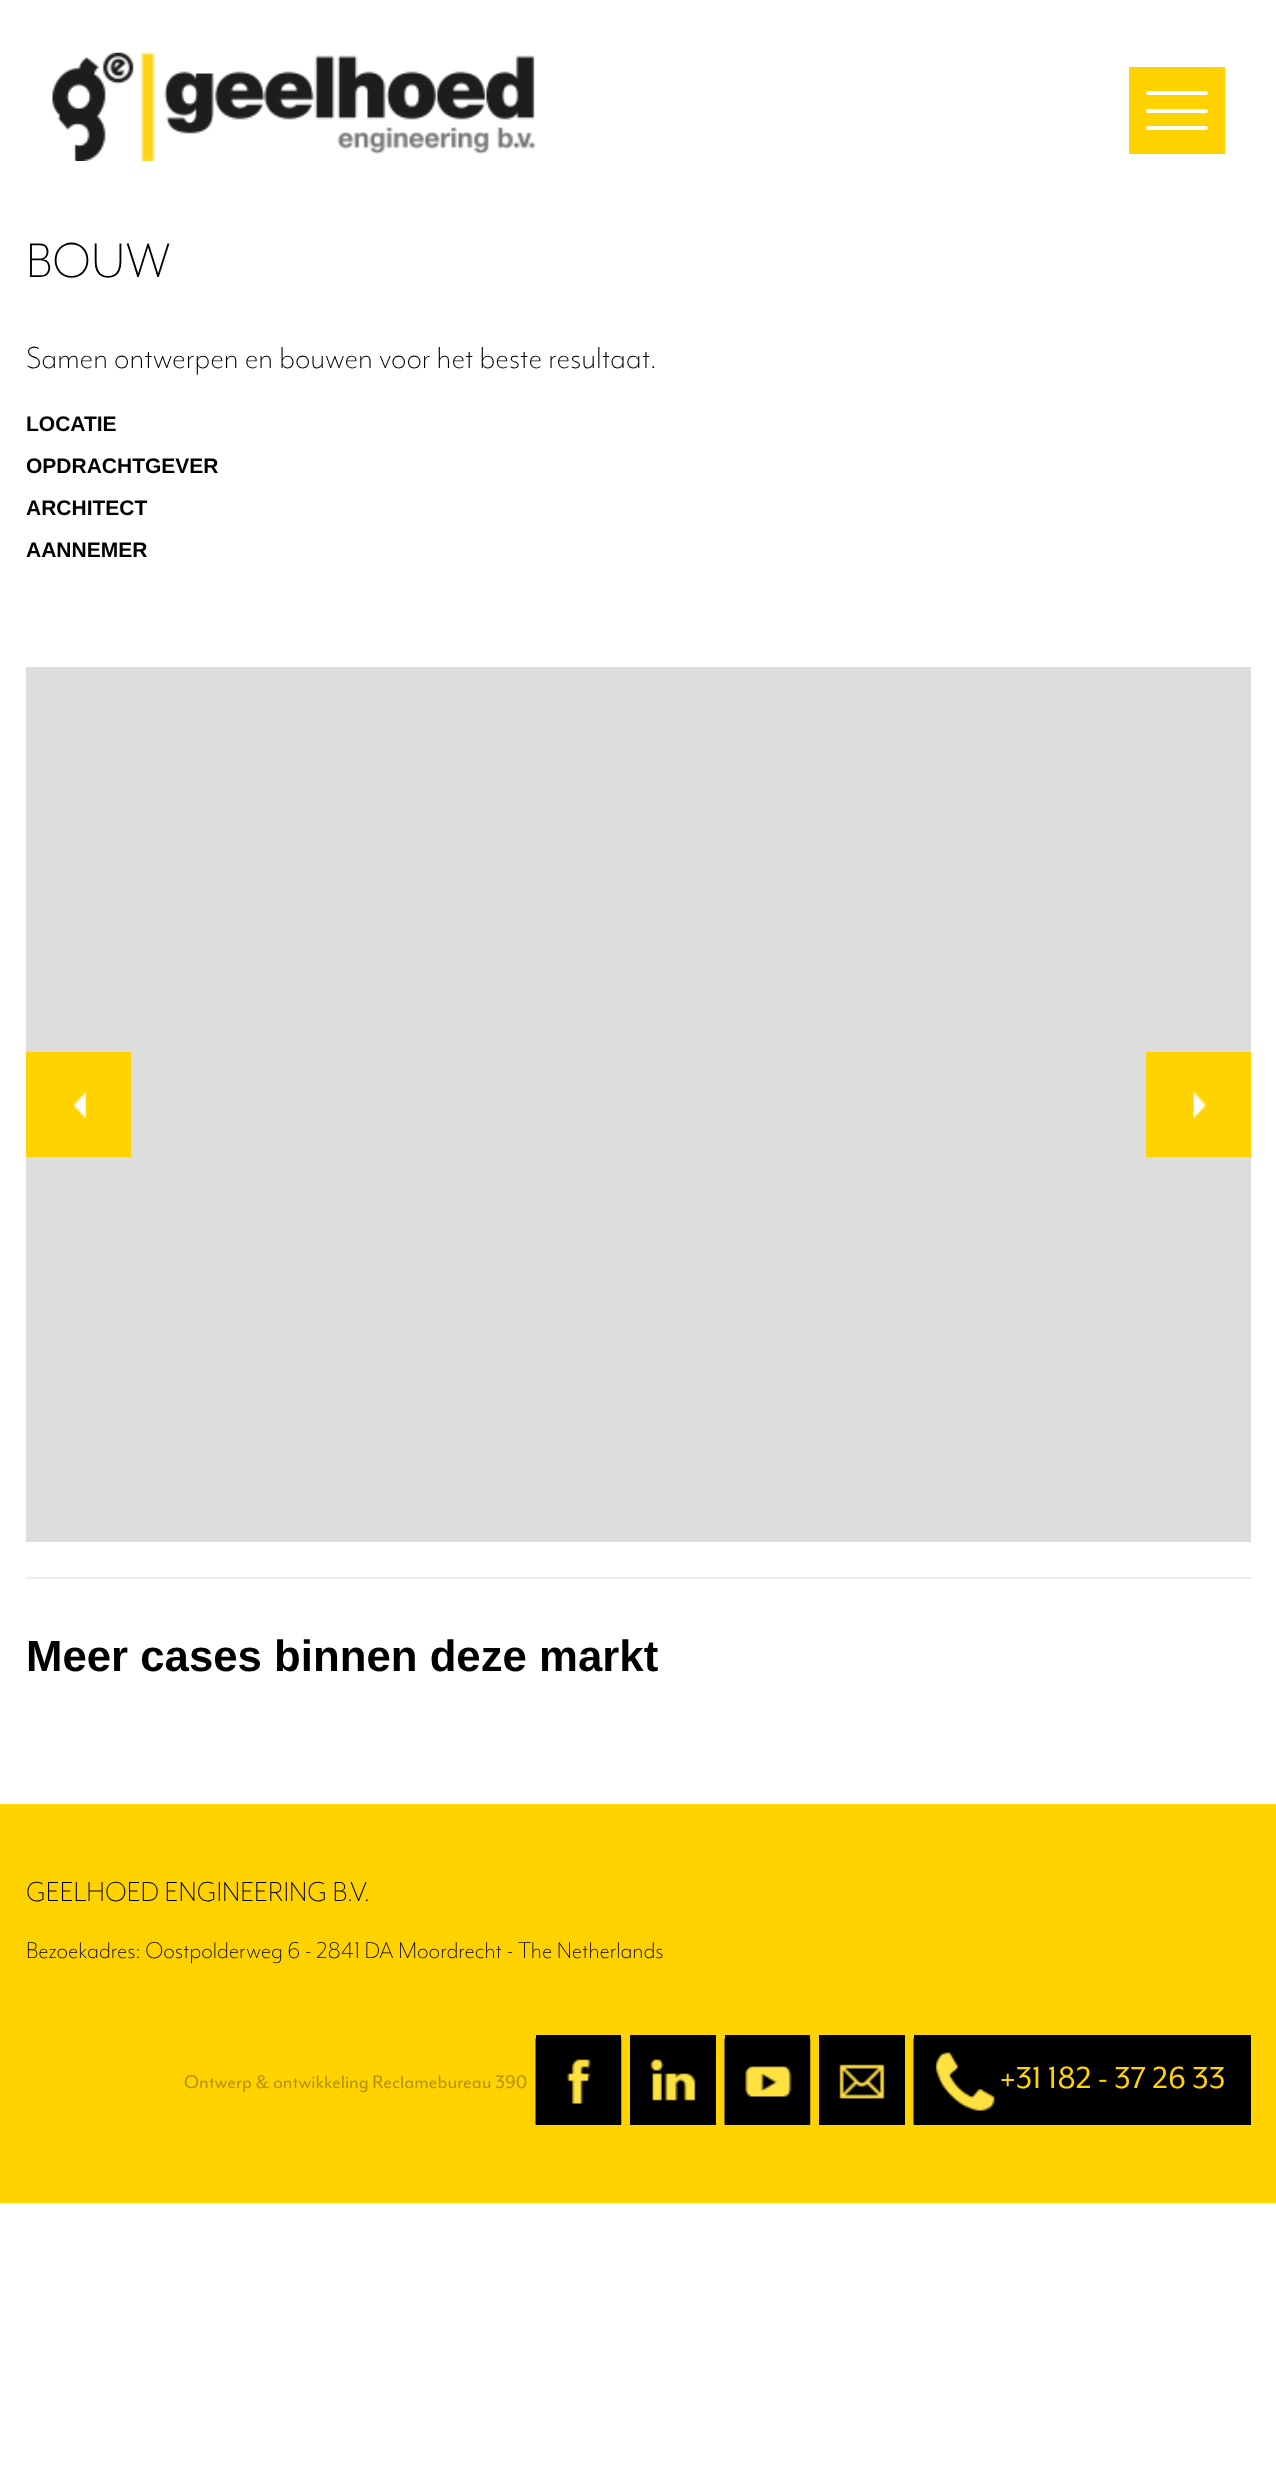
<!DOCTYPE html>
<meta charset="utf-8">
<style>body { margin: 0 } canvas { display: block }</style>
<canvas id="canvas" width="1276" height="2470"></canvas>
<img id="img1" src="images/1.png" hidden>
<img id="img2" src="images/2.png" hidden>
<img id="img3" src="images/3.png" hidden>
<img id="img4" src="images/4.png" hidden>
<img id="img5" src="images/5.png" hidden>
<img id="img6" src="images/6.png" hidden>
<img id="img7" src="images/7.png" hidden>
<img id="img8" src="images/8.png" hidden>
<script>
window.onload = function () {
    const canvas = document.getElementById('canvas');
    const context = canvas.getContext('2d');
    context.miterLimit = 4;
    context.fontKerning = 'normal';

    context.fillStyle = 'rgb(255, 255, 255)';
    context.fillRect(0, 0, 1276, 2470);
    context.drawImage(document.getElementById('img1'), 52, 52, 484, 109);
    context.fillStyle = 'rgb(255, 210, 0)';
    context.fillRect(1129, 67, 96, 87);
    context.fillStyle = 'rgb(255, 255, 255)';
    context.beginPath();
    context.roundRect(1146, 91, 62, 4, 2);
    context.fill();
    context.beginPath();
    context.roundRect(1146, 109, 62, 4, 2);
    context.fill();
    context.beginPath();
    context.roundRect(1146, 126, 62, 4, 2);
    context.fill();
    context.fillStyle = 'rgb(221, 221, 221)';
    context.fillRect(26, 667, 1225, 875);
    context.fillStyle = 'rgb(255, 210, 0)';
    context.fillRect(26, 1052, 105, 105);
    context.drawImage(document.getElementById('img2'), 73, 1092, 13, 27);
    context.fillRect(1146, 1052, 105, 105);
    context.drawImage(document.getElementById('img3'), 1193, 1092, 13, 27);
    context.fillStyle = 'rgb(238, 238, 238)';
    context.fillRect(26, 1577, 1225, 2);
    context.fillStyle = 'rgb(255, 210, 0)';
    context.fillRect(0, 1804, 1276, 399);
    context.fillStyle = 'rgb(0, 0, 0)';
    context.fillRect(536, 2035, 85, 90);
    context.drawImage(document.getElementById('img4'), 535, 2038, 87, 87);
    context.fillRect(630, 2035, 86, 90);
    context.drawImage(document.getElementById('img5'), 650, 2059, 46, 42);
    context.fillRect(725, 2035, 85, 90);
    context.drawImage(document.getElementById('img6'), 724, 2038, 87, 87);
    context.fillRect(819, 2035, 86, 90);
    context.drawImage(document.getElementById('img7'), 839, 2064, 46, 35);
    context.fillRect(914, 2035, 337, 90);
    context.drawImage(document.getElementById('img8'), 913, 2038, 82, 87);
    context.font = '300 56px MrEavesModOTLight';
    context.fillText('BOUW', 26, 277);
    context.font = '300 35px MrEavesModOTLight';
    context.fillText('Samen ontwerpen en bouwen voor het beste resultaat.', 26, 368);
    context.font = 'bold 21px Liberation Sans';
    context.fillText('LOCATIE', 26, 431);
    context.fillText('OPDRACHTGEVER', 26, 473);
    context.fillText('ARCHITECT', 26, 515);
    context.fillText('AANNEMER', 26, 557);
    context.font = 'bold 43.75px Liberation Sans';
    context.fillText('Meer cases binnen deze markt', 26, 1671);
    context.font = '300 31.5px MrEavesModOTLight';
    context.fillText('GEELHOED ENGINEERING B.V.', 26, 1901);
    context.font = '300 26.25px MrEavesModOTLight';
    context.fillText('Bezoekadres: Oostpolderweg 6 - 2841 DA Moordrecht - The Netherlands', 26, 1958);
    context.font = '21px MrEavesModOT';
    context.fillStyle = 'rgb(177, 146, 0)';
    context.fillText('Ontwerp & ontwikkeling Reclamebureau 390', 184, 2088);
    context.font = '35px MrEavesModOT';
    context.fillStyle = 'rgb(255, 210, 0)';
    context.fillText('+31 182 - 37 26 33', 1000, 2088);
};
</script>
